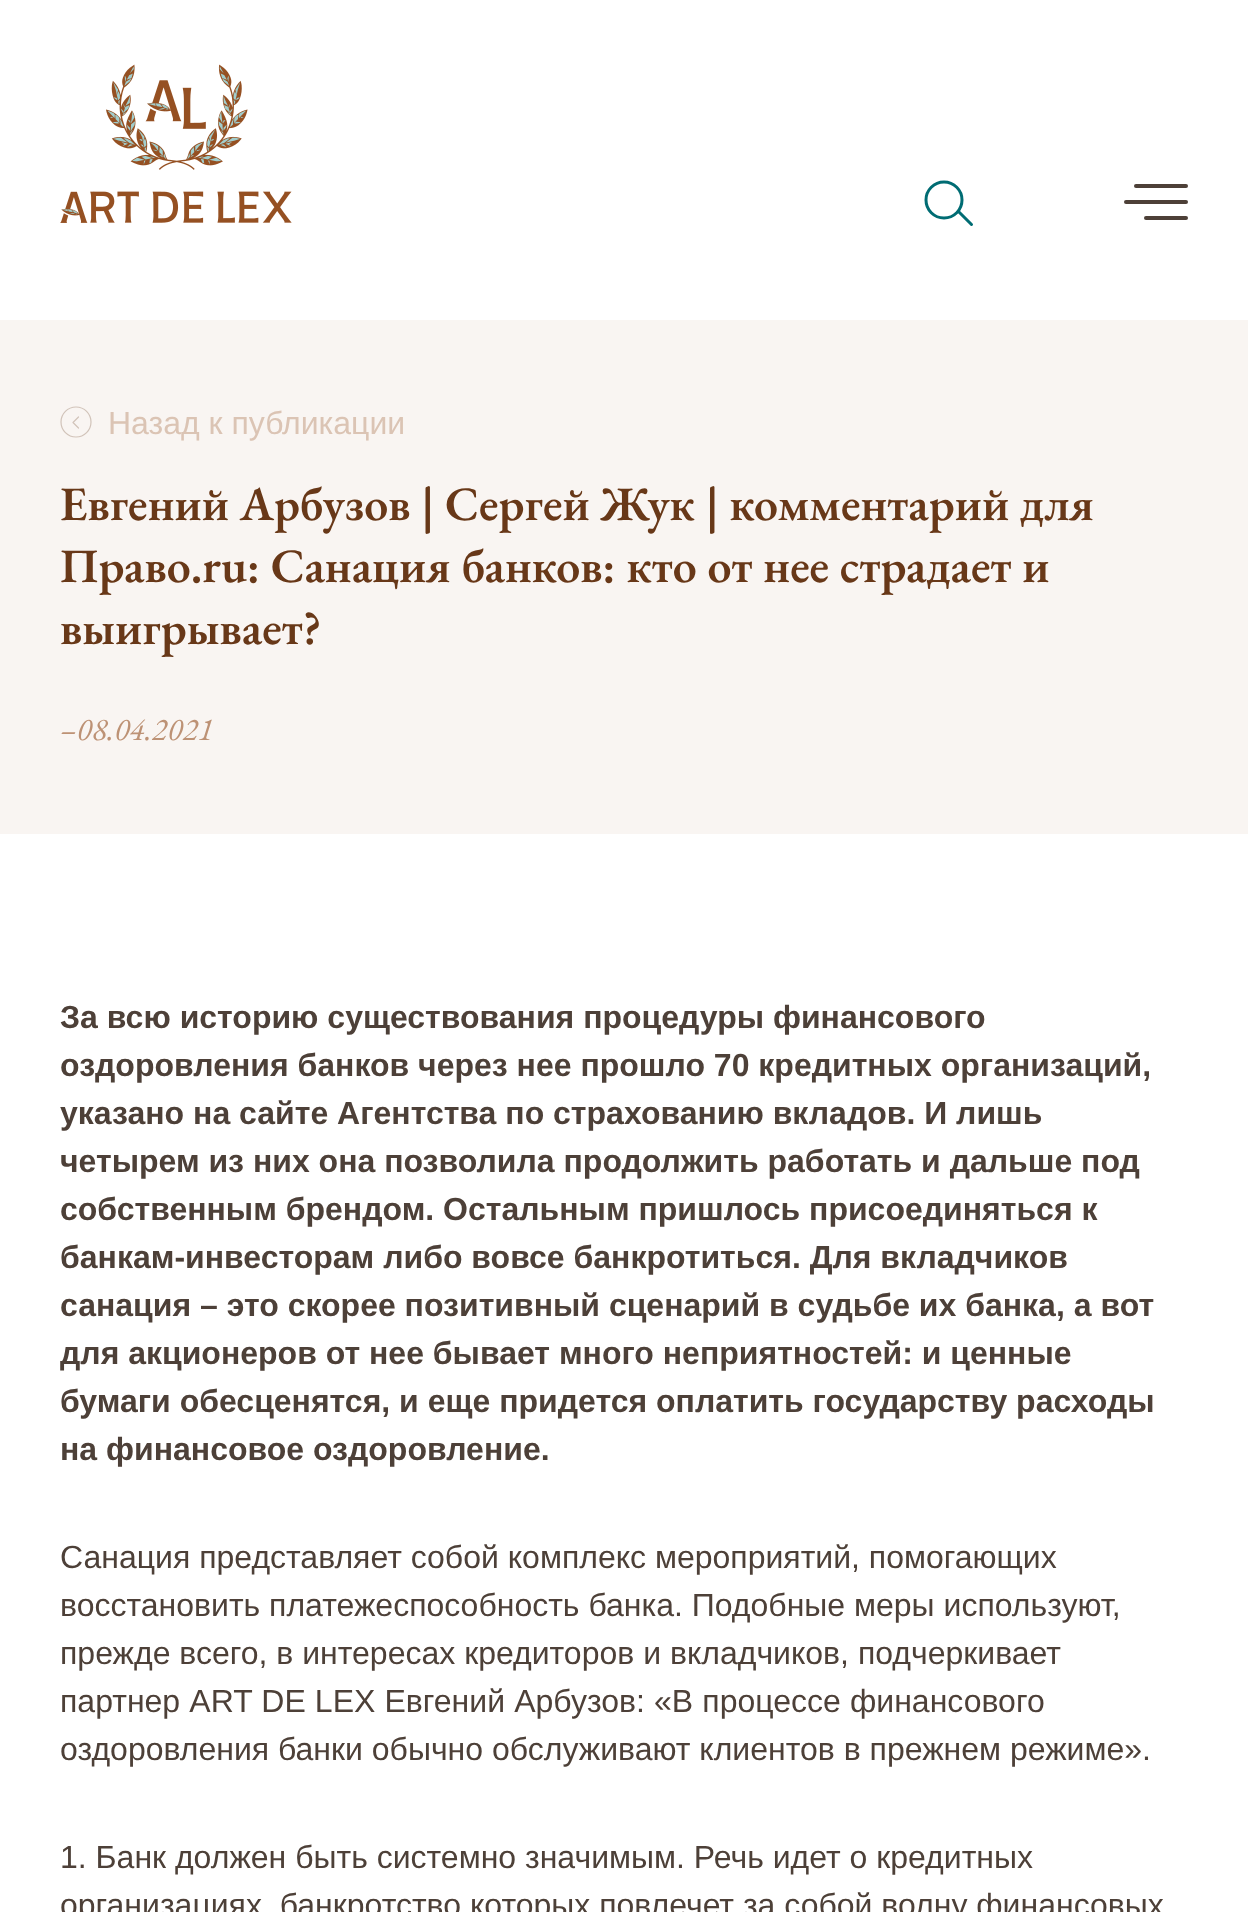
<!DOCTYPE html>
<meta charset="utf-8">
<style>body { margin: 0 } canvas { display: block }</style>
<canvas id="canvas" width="1248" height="1912"></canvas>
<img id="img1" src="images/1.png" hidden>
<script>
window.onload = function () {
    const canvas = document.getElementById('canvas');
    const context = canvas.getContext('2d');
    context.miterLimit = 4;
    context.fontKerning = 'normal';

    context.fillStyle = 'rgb(255, 255, 255)';
    context.fillRect(0, 0, 1248, 1912);
    context.drawImage(document.getElementById('img1'), 60, 64, 232, 159);
    context.beginPath();
    context.arc(944, 200, 18, 0, 2 * Math.PI);
    context.strokeStyle = 'rgb(0, 108, 115)';
    context.lineWidth = 3;
    context.stroke();
    context.beginPath();
    context.moveTo(958.5, 211.5);
    context.lineTo(971.5, 224.5);
    context.lineCap = 'round';
    context.stroke();
    context.fillStyle = 'rgb(77, 64, 56)';
    context.beginPath();
    context.roundRect(1124, 200, 64, 4, 2);
    context.fill();
    context.beginPath();
    context.roundRect(1134, 184, 54, 4, 2);
    context.fill();
    context.beginPath();
    context.roundRect(1144, 216, 44, 4, 2);
    context.fill();
    context.fillStyle = 'rgb(249, 245, 242)';
    context.fillRect(0, 320, 1248, 514);
    context.beginPath();
    context.moveTo(78.5, 428);
    context.lineTo(73, 422.5);
    context.lineTo(78.5, 417);
    context.strokeStyle = 'rgb(209, 195, 185)';
    context.lineWidth = 1.2;
    context.lineJoin = 'round';
    context.stroke();
    context.beginPath();
    context.arc(76, 422, 15, 0, 2 * Math.PI);
    context.stroke();
    context.font = '32px Liberation Sans';
    context.fillStyle = 'rgb(219, 196, 180)';
    context.fillText('Назад к публикации', 108, 434);
    context.font = '600 48px EB Garamond';
    context.fillStyle = 'rgb(104, 56, 24)';
    context.fillText('Евгений Арбузов | Сергей Жук | комментарий для', 60, 520);
    context.fillText('Право.ru: Санация банков: кто от нее страдает и', 60, 582);
    context.fillText('выигрывает?', 60, 644);
    context.font = 'italic 32px EB Garamond';
    context.fillStyle = 'rgb(189, 146, 117)';
    context.fillText('–08.04.2021', 60, 740);
    context.font = 'bold 32px Liberation Sans';
    context.fillStyle = 'rgb(77, 64, 56)';
    context.fillText('За всю историю существования процедуры финансового', 60, 1028);
    context.fillText('оздоровления банков через нее прошло 70 кредитных организаций,', 60, 1076);
    context.fillText('указано на сайте Агентства по страхованию вкладов. И лишь', 60, 1124);
    context.fillText('четырем из них она позволила продолжить работать и дальше под', 60, 1172);
    context.fillText('собственным брендом. Остальным пришлось присоединяться к', 60, 1220);
    context.fillText('банкам-инвесторам либо вовсе банкротиться. Для вкладчиков', 60, 1268);
    context.fillText('санация – это скорее позитивный сценарий в судьбе их банка, а вот', 60, 1316);
    context.fillText('для акционеров от нее бывает много неприятностей: и ценные', 60, 1364);
    context.fillText('бумаги обесценятся, и еще придется оплатить государству расходы', 60, 1412);
    context.fillText('на финансовое оздоровление.', 60, 1460);
    context.font = '32px Liberation Sans';
    context.fillText('Санация представляет собой комплекс мероприятий, помогающих', 60, 1568);
    context.fillText('восстановить платежеспособность банка. Подобные меры используют,', 60, 1616);
    context.fillText('прежде всего, в интересах кредиторов и вкладчиков, подчеркивает', 60, 1664);
    context.wordSpacing = '0.25px';
    context.fillText('партнер ART DE LEX Евгений Арбузов: «В процессе финансового', 60, 1712);
    context.wordSpacing = '0px';
    context.fillText('оздоровления банки обычно обслуживают клиентов в прежнем режиме».', 60, 1760);
    context.fillText('1. Банк должен быть системно значимым. Речь идет о кредитных', 60, 1868);
    context.fillText('организациях, банкротство которых повлечет за собой волну финансовых', 60, 1916);
};
</script>
